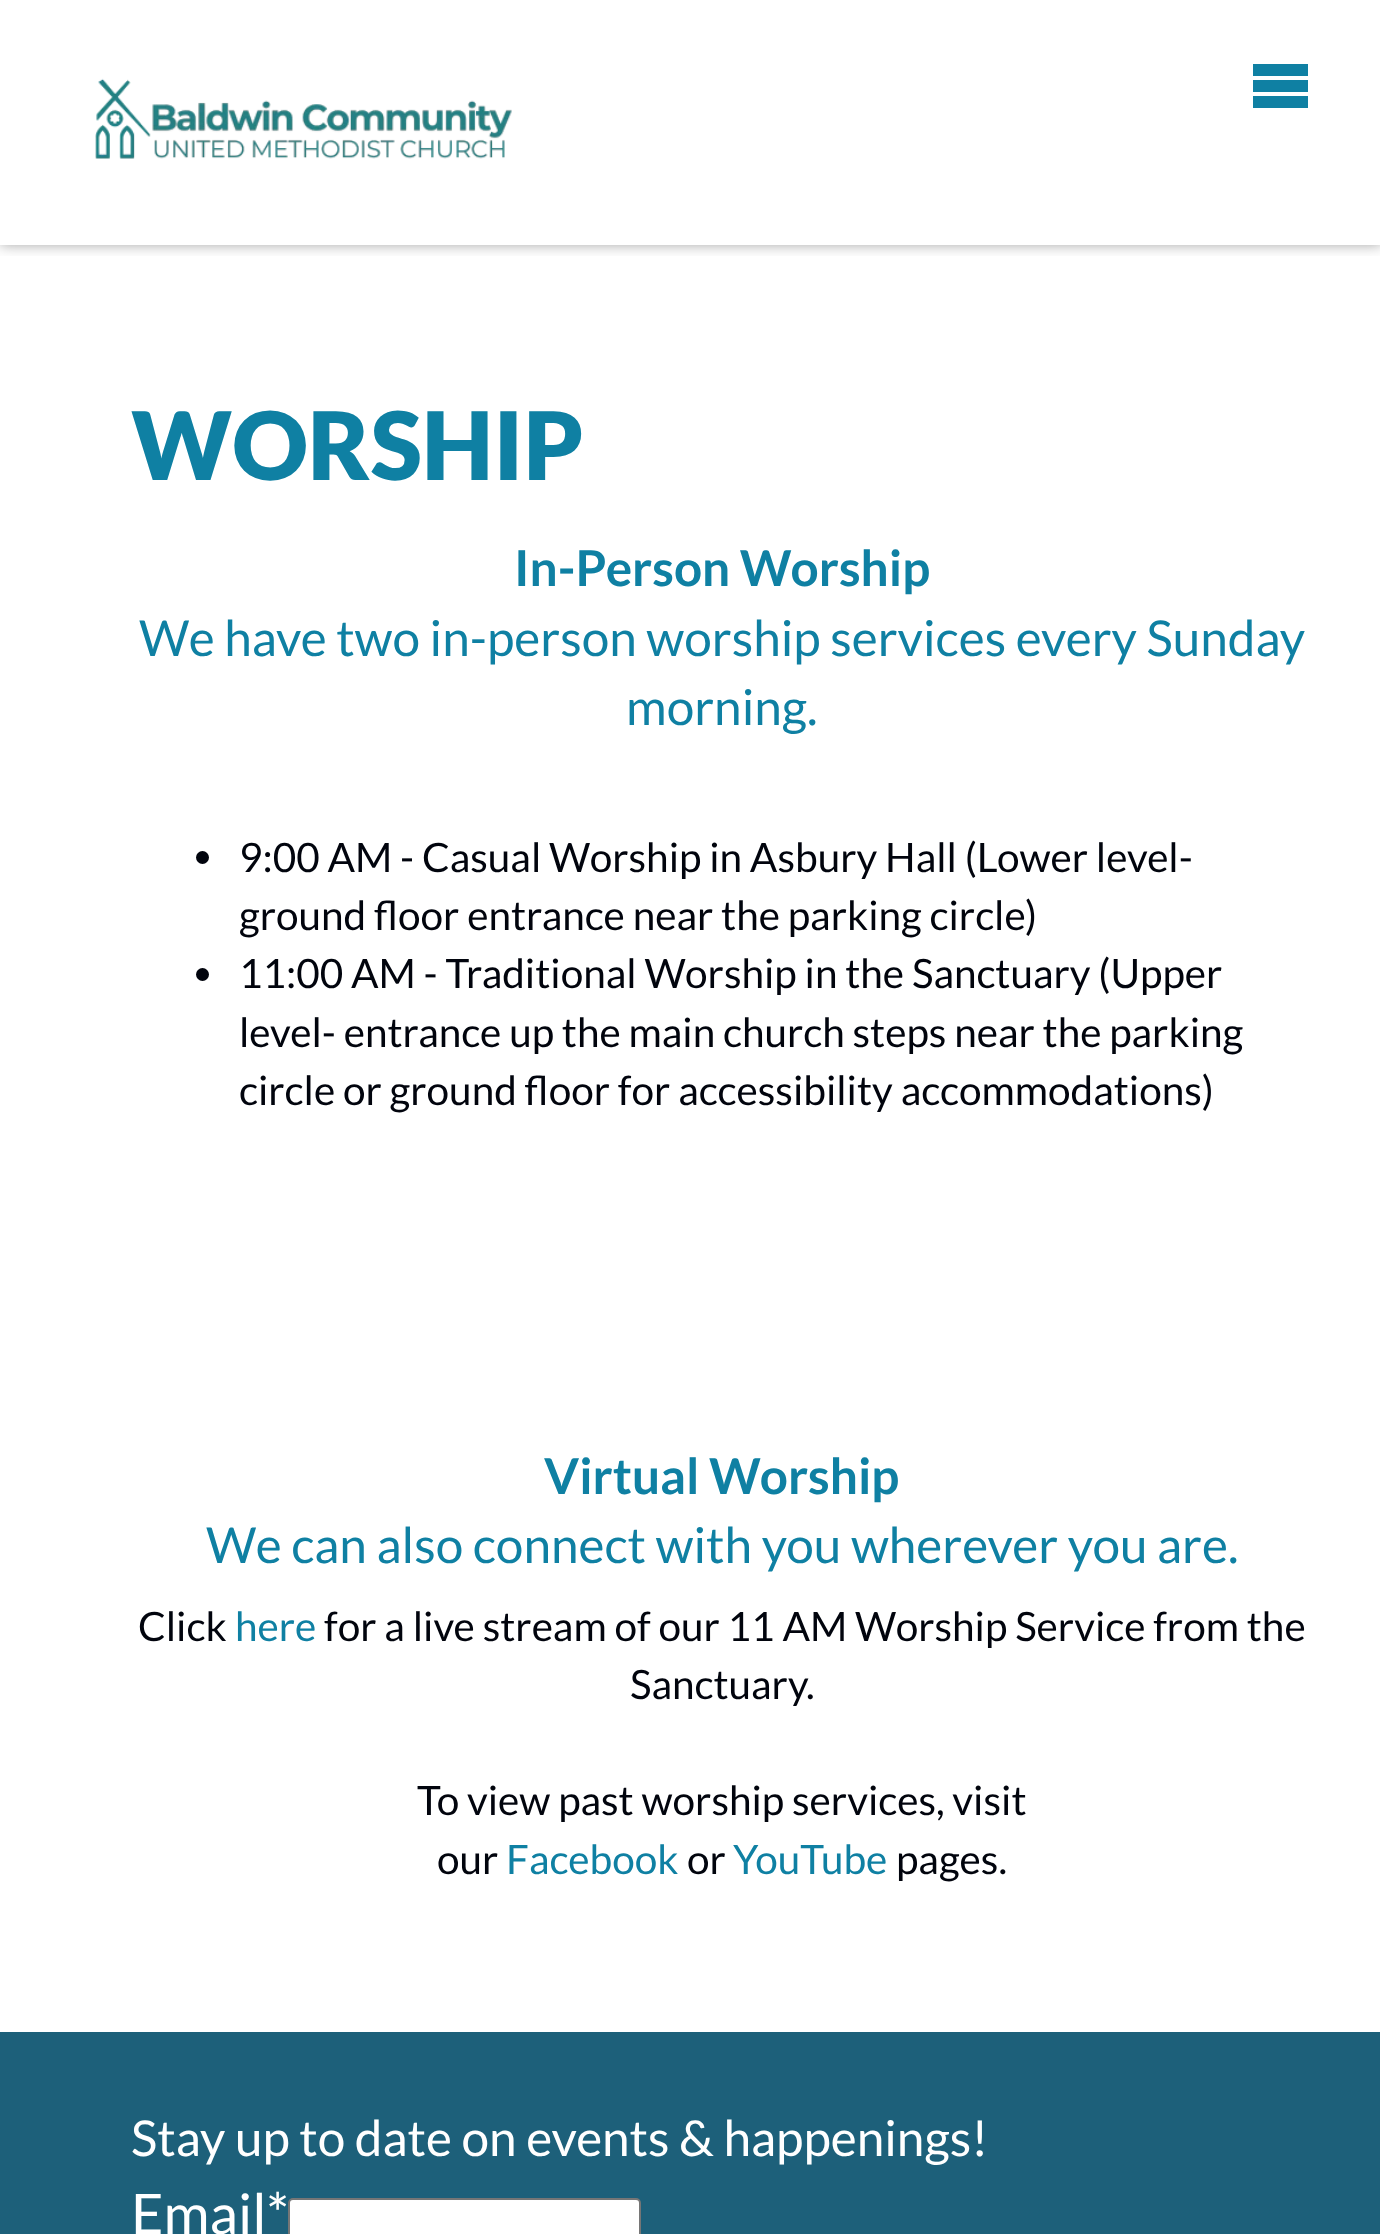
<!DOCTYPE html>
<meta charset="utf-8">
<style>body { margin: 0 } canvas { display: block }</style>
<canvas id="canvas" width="1380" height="2234"></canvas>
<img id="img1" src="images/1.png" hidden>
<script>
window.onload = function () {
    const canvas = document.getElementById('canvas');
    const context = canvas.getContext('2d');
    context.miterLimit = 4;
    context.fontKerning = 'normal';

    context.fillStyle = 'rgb(255, 255, 255)';
    context.fillRect(0, 0, 1380, 2234);
    context.save();
    context.beginPath();
    context.rect(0, 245, 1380, 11);
    context.clip();
    context.fillStyle = 'rgba(0, 0, 0, 0.35)';
    context.filter = 'blur(7px)';
    context.beginPath();
    context.rect(0, 0, 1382, 245);
    context.fill();
    context.filter = 'none';
    context.restore();
    context.drawImage(document.getElementById('img1'), 95, 78, 417, 81);
    context.fillStyle = 'rgb(15, 128, 163)';
    context.beginPath();
    context.moveTo(1253, 64);
    context.lineTo(1308, 64);
    context.lineTo(1308, 76);
    context.lineTo(1253, 76);
    context.closePath();
    context.moveTo(1253, 80);
    context.lineTo(1308, 80);
    context.lineTo(1308, 92);
    context.lineTo(1253, 92);
    context.closePath();
    context.moveTo(1253, 96);
    context.lineTo(1308, 96);
    context.lineTo(1308, 108);
    context.lineTo(1253, 108);
    context.closePath();
    context.fill();
    context.fillStyle = 'rgb(1, 4, 13)';
    context.beginPath();
    context.arc(202.5, 857.5, 6.5, 0, 2 * Math.PI);
    context.fill();
    context.beginPath();
    context.arc(202.5, 974.5, 6.5, 0, 2 * Math.PI);
    context.fill();
    context.fillStyle = 'rgb(29, 96, 122)';
    context.fillRect(0, 2032, 1380, 202);
    context.fillStyle = 'rgb(255, 255, 255)';
    context.beginPath();
    context.roundRect(289, 2199, 351, 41, 4);
    context.fill();
    context.strokeStyle = 'rgb(118, 118, 118)';
    context.lineWidth = 2;
    context.stroke();
    context.font = '900 94.5px Lato';
    context.fillStyle = 'rgb(15, 128, 163)';
    context.fillText('WORSHIP', 131, 480);
    context.font = 'bold 49.5px Lato';
    context.fillText('In-Person Worship', 514, 586);
    context.font = '49.5px Lato';
    context.fillText('We have two in-person worship services every Sunday', 139, 656);
    context.fillText('morning.', 626, 725);
    context.font = '40.5px Lato';
    context.fillStyle = 'rgb(1, 4, 13)';
    context.fillText('9:00 AM - Casual Worship in Asbury Hall (Lower level-', 239, 872);
    context.fillText('ground floor entrance near the parking circle)', 239, 930);
    context.fillText('11:00 AM - Traditional Worship in the Sanctuary (Upper', 239, 988);
    context.fillText('level- entrance up the main church steps near the parking', 239, 1047);
    context.fillText('circle or ground floor for accessibility accommodations)', 239, 1105);
    context.font = 'bold 49.5px Lato';
    context.fillStyle = 'rgb(15, 128, 163)';
    context.fillText('Virtual Worship', 544, 1494);
    context.font = '49.5px Lato';
    context.fillText('We can also connect with you wherever you are.', 206, 1563);
    context.font = '40.5px Lato';
    context.fillStyle = 'rgb(1, 4, 13)';
    context.fillText('Click', 138, 1641);
    context.fillStyle = 'rgb(15, 128, 163)';
    context.fillText('here', 235, 1641);
    context.fillStyle = 'rgb(1, 4, 13)';
    context.fillText('for a live stream of our 11 AM Worship Service from the', 324, 1641);
    context.fillText('Sanctuary.', 630, 1699);
    context.fillText('To view past worship services, visit', 417, 1815);
    context.fillText('our', 437, 1874);
    context.fillStyle = 'rgb(15, 128, 163)';
    context.fillText('Facebook', 506, 1874);
    context.fillStyle = 'rgb(1, 4, 13)';
    context.fillText('or', 687, 1874);
    context.fillStyle = 'rgb(15, 128, 163)';
    context.fillText('YouTube', 733, 1874);
    context.fillStyle = 'rgb(1, 4, 13)';
    context.fillText('pages.', 896, 1874);
    context.font = '49.5px Lato';
    context.fillStyle = 'rgb(255, 255, 255)';
    context.fillText('Stay up to date on events & happenings!', 131, 2156);
    context.font = '56px Lato';
    context.fillText('Email*', 131, 2234);
};
</script>
